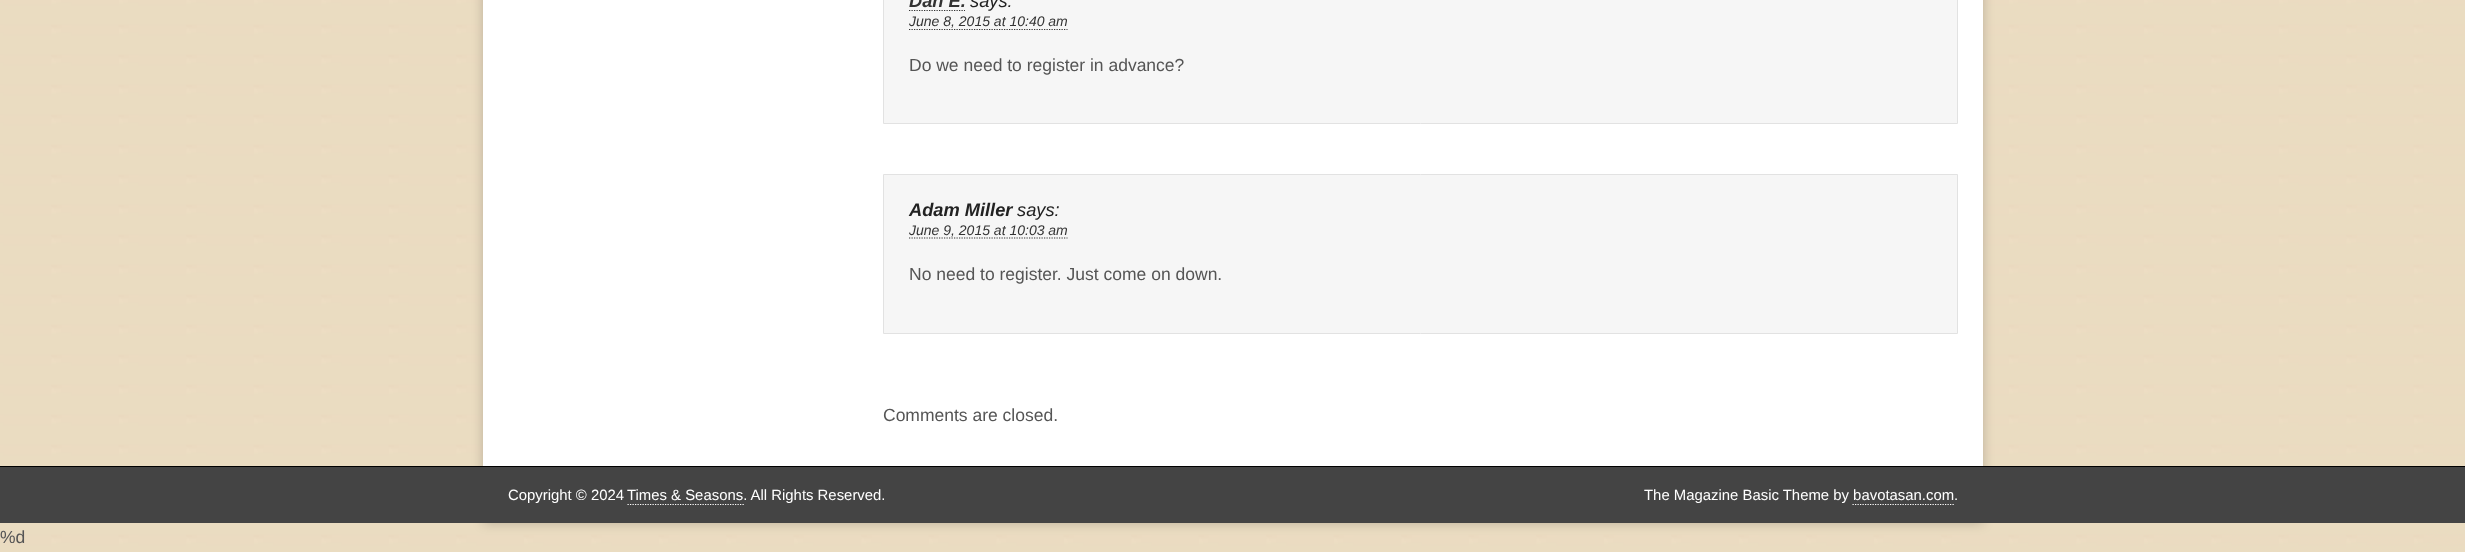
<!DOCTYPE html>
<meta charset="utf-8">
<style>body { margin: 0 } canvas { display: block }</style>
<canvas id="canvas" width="2465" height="552"></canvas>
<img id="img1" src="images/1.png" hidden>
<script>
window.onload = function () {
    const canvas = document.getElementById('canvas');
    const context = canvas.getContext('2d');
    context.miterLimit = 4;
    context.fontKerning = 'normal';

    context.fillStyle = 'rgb(255, 255, 255)';
    context.fillRect(0, 0, 2465, 552);
    context.drawImage(document.getElementById('img1'), 0, 0, 2465, 552);
    context.fillStyle = 'rgba(0, 0, 0, 0.2)';
    context.filter = 'blur(6px)';
    context.beginPath();
    context.rect(483, -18, 1500, 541);
    context.fill();
    context.filter = 'none';
    context.fillStyle = 'rgb(255, 255, 255)';
    context.fillRect(483, 0, 1500, 466);
    context.fillStyle = 'rgb(246, 246, 246)';
    context.beginPath();
    context.rect(883.5, -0.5, 1074, 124);
    context.fill();
    context.strokeStyle = 'rgb(226, 226, 226)';
    context.stroke();
    context.beginPath();
    context.moveTo(909, 10.5);
    context.lineTo(965, 10.5);
    context.strokeStyle = 'rgb(51, 51, 51)';
    context.lineWidth = 1.2;
    context.setLineDash([1.25, 1.25]);
    context.stroke();
    context.beginPath();
    context.moveTo(909, 29.5);
    context.lineTo(1067.5, 29.5);
    context.stroke();
    context.beginPath();
    context.rect(883.5, 174.5, 1074, 159);
    context.fill();
    context.strokeStyle = 'rgb(226, 226, 226)';
    context.lineWidth = 1;
    context.setLineDash([]);
    context.stroke();
    context.beginPath();
    context.moveTo(909, 238);
    context.lineTo(1067.5, 238);
    context.strokeStyle = 'rgb(51, 51, 51)';
    context.lineWidth = 1.2;
    context.setLineDash([1.25, 1.25]);
    context.stroke();
    context.fillStyle = 'rgb(68, 68, 68)';
    context.fillRect(0, 467, 2465, 56);
    context.fillStyle = 'rgb(0, 0, 0)';
    context.fillRect(0, 466, 2465, 1);
    context.beginPath();
    context.moveTo(627.5, 504.5);
    context.lineTo(744, 504.5);
    context.strokeStyle = 'rgb(255, 255, 255)';
    context.stroke();
    context.beginPath();
    context.moveTo(1852.5, 504.5);
    context.lineTo(1954, 504.5);
    context.stroke();
    context.font = 'italic bold 18.25px Liberation Sans';
    context.fillStyle = 'rgb(51, 51, 51)';
    context.fillText('Dan E.', 909, 7);
    context.font = 'italic 18.25px Liberation Sans';
    context.fillStyle = 'rgb(34, 34, 34)';
    context.fillText('says:', 970, 7);
    context.font = 'italic 14px Liberation Sans';
    context.fillStyle = 'rgb(51, 51, 51)';
    context.fillText('June 8, 2015 at 10:40 am', 909, 26);
    context.font = '17.5px Liberation Sans';
    context.fillStyle = 'rgb(85, 85, 85)';
    context.fillText('Do we need to register in advance?', 909, 71);
    context.font = 'italic bold 18.25px Liberation Sans';
    context.fillStyle = 'rgb(34, 34, 34)';
    context.fillText('Adam Miller', 909, 216);
    context.font = 'italic 18.25px Liberation Sans';
    context.fillText('says:', 1017, 216);
    context.font = 'italic 14px Liberation Sans';
    context.fillStyle = 'rgb(51, 51, 51)';
    context.fillText('June 9, 2015 at 10:03 am', 909, 235);
    context.font = '17.5px Liberation Sans';
    context.fillStyle = 'rgb(85, 85, 85)';
    context.fillText('No need to register. Just come on down.', 909, 280);
    context.fillText('Comments are closed.', 883, 421);
    context.font = '14.9px Liberation Sans';
    context.fillStyle = 'rgb(255, 255, 255)';
    context.fillText('Copyright © 2024', 508, 500);
    context.fillText('Times & Seasons. All Rights Reserved.', 627, 500);
    context.fillText('The Magazine Basic Theme by bavotasan.com.', 1644, 500);
    context.font = '17.5px Liberation Sans';
    context.fillStyle = 'rgb(85, 85, 85)';
    context.fillText('%d', 0, 543);
};
</script>
